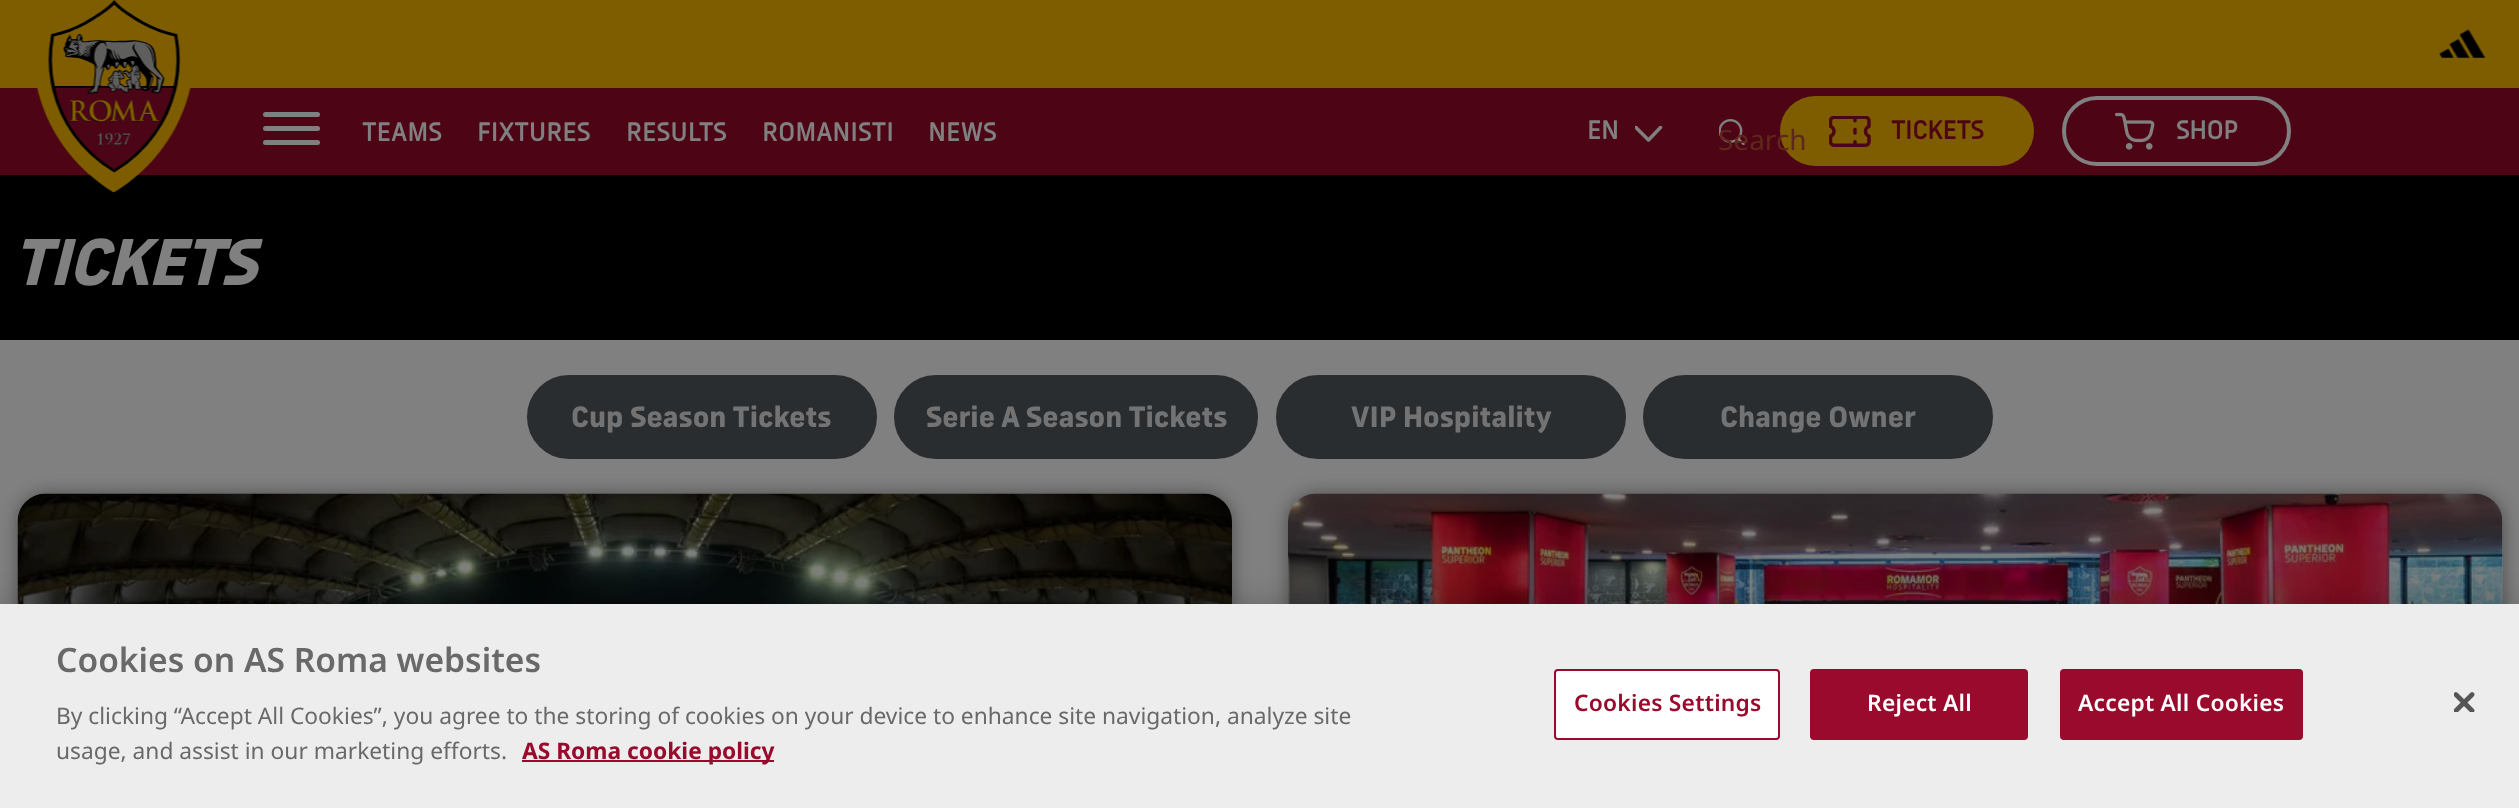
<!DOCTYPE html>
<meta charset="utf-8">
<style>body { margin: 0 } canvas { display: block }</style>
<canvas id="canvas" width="2519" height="808"></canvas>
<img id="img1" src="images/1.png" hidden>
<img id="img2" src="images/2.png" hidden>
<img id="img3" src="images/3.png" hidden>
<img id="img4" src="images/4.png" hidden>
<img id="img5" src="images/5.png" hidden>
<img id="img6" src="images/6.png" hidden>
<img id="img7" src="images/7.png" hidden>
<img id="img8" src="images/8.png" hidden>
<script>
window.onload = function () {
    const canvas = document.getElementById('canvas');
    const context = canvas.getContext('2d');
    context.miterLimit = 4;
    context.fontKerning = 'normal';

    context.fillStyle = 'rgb(128, 128, 128)';
    context.fillRect(0, 0, 2519, 808);
    context.fillStyle = 'rgb(77, 5, 22)';
    context.fillRect(0, 88, 2519, 87);
    context.fillStyle = 'rgb(126, 93, 0)';
    context.fillRect(0, 0, 2519, 88);
    context.drawImage(document.getElementById('img1'), 2439, 29, 47, 29);
    context.fillStyle = 'rgb(0, 0, 0)';
    context.fillRect(0, 175, 2519, 165);
    context.drawImage(document.getElementById('img2'), 36, 0, 155, 193);
    context.fillStyle = 'rgb(128, 128, 128)';
    context.beginPath();
    context.roundRect(263, 112, 57, 5, 2.5);
    context.fill();
    context.beginPath();
    context.roundRect(263, 126, 57, 5, 2.5);
    context.fill();
    context.beginPath();
    context.roundRect(263, 140, 57, 5, 2.5);
    context.fill();
    context.save();
    context.beginPath();
    context.rect(1635, 124, 28, 18);
    context.clip();
    context.beginPath();
    context.moveTo(1660.5, 127.5);
    context.lineTo(1648.5, 140);
    context.lineTo(1636, 127.5);
    context.strokeStyle = 'rgb(128, 128, 128)';
    context.lineWidth = 3.5;
    context.lineCap = 'round';
    context.lineJoin = 'round';
    context.stroke();
    context.restore();
    context.drawImage(document.getElementById('img3'), 1719, 119, 26, 26);
    context.fillStyle = 'rgb(126, 93, 0)';
    context.beginPath();
    context.roundRect(1780, 96, 254, 70, 35);
    context.fill();
    context.drawImage(document.getElementById('img4'), 1829, 116, 42, 31);
    context.beginPath();
    context.roundRect(2064, 98, 225, 66, 33);
    context.strokeStyle = 'rgb(128, 128, 128)';
    context.lineWidth = 4;
    context.stroke();
    context.drawImage(document.getElementById('img5'), 2114, 112, 41, 38);
    context.fillStyle = 'rgb(42, 45, 48)';
    context.beginPath();
    context.roundRect(529, 377, 346, 80, 40);
    context.fill();
    context.strokeStyle = 'rgb(42, 45, 48)';
    context.stroke();
    context.beginPath();
    context.roundRect(896, 377, 360, 80, 40);
    context.fill();
    context.stroke();
    context.beginPath();
    context.roundRect(1278, 377, 346, 80, 40);
    context.fill();
    context.stroke();
    context.beginPath();
    context.roundRect(1645, 377, 346, 80, 40);
    context.fill();
    context.stroke();
    context.fillStyle = 'rgba(0, 0, 0, 0.4)';
    context.filter = 'blur(9px)';
    context.beginPath();
    context.roundRect(18, 494, 1214, 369, 28);
    context.fill();
    context.filter = 'none';
    context.drawImage(document.getElementById('img6'), 17, 493, 1215, 111);
    context.filter = 'blur(9px)';
    context.beginPath();
    context.roundRect(1288, 494, 1215, 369, 28);
    context.fill();
    context.filter = 'none';
    context.fillStyle = 'rgb(115, 115, 115)';
    context.beginPath();
    context.roundRect(1288, 494, 1215, 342, 28);
    context.fill();
    context.drawImage(document.getElementById('img7'), 1288, 493, 1215, 111);
    context.fillStyle = 'rgba(0, 0, 0, 0.2)';
    context.filter = 'blur(16px)';
    context.beginPath();
    context.rect(0, 604, 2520, 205);
    context.fill();
    context.filter = 'none';
    context.fillStyle = 'rgb(237, 237, 237)';
    context.fillRect(0, 604, 2519, 204);
    context.fillStyle = 'rgb(153, 10, 44)';
    context.fillRect(522, 760, 252, 2);
    context.fillStyle = 'rgb(255, 255, 255)';
    context.beginPath();
    context.roundRect(1555, 670, 224, 69, 3);
    context.fill();
    context.strokeStyle = 'rgb(153, 10, 44)';
    context.lineWidth = 2;
    context.stroke();
    context.fillStyle = 'rgb(153, 10, 44)';
    context.beginPath();
    context.roundRect(1811, 670, 216, 69, 3);
    context.fill();
    context.stroke();
    context.beginPath();
    context.roundRect(2061, 670, 241, 69, 3);
    context.fill();
    context.stroke();
    context.drawImage(document.getElementById('img8'), 2454, 692, 21, 20);
    context.letterSpacing = '0.5px';
    context.font = 'bold 24.5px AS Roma';
    context.fillStyle = 'rgb(128, 128, 128)';
    context.fillText('TEAMS', 362, 141);
    context.fillText('FIXTURES', 477, 141);
    context.fillText('RESULTS', 626, 141);
    context.fillText('ROMANISTI', 762, 141);
    context.fillText('NEWS', 928, 141);
    context.letterSpacing = '0px';
    context.fillText('EN', 1587, 139);
    context.font = '28px Noto Sans';
    context.fillStyle = 'rgb(94, 39, 27)';
    context.fillText('Search', 1718, 150);
    context.font = 'bold 24.5px AS Roma';
    context.fillStyle = 'rgb(77, 5, 22)';
    context.fillText('TICKETS', 1891, 139);
    context.fillStyle = 'rgb(128, 128, 128)';
    context.fillText('SHOP', 2176, 139);
    context.letterSpacing = '-1.75px';
    context.font = 'italic 800 63px AS Roma';
    context.fillText('TICKETS', 12, 285);
    context.letterSpacing = '0px';
    context.font = '800 28px AS Roma';
    context.fillStyle = 'rgb(115, 115, 115)';
    context.fillText('Cup Season Tickets', 571, 427);
    context.fillText('Serie A Season Tickets', 926, 427);
    context.fillText('VIP Hospitality', 1351, 427);
    context.fillText('Change Owner', 1720, 427);
    context.font = '600 33.6px Noto Sans';
    context.fillStyle = 'rgb(105, 105, 105)';
    context.fillText('Cookies on AS Roma websites', 56, 672);
    context.font = '22.75px Noto Sans';
    context.fillText('By clicking “Accept All Cookies”, you agree to the storing of cookies on your device to enhance site navigation, analyze site', 56, 724);
    context.fillText('usage, and assist in our marketing efforts.', 56, 759);
    context.font = 'bold 22.75px Noto Sans';
    context.fillStyle = 'rgb(153, 10, 44)';
    context.fillText('AS Roma cookie policy', 522, 759);
    context.letterSpacing = '0.25px';
    context.font = '600 22.75px Noto Sans';
    context.fillText('Cookies Settings', 1574, 711);
    context.fillStyle = 'rgb(255, 255, 255)';
    context.fillText('Reject All', 1867, 711);
    context.fillText('Accept All Cookies', 2078, 711);
};
</script>
